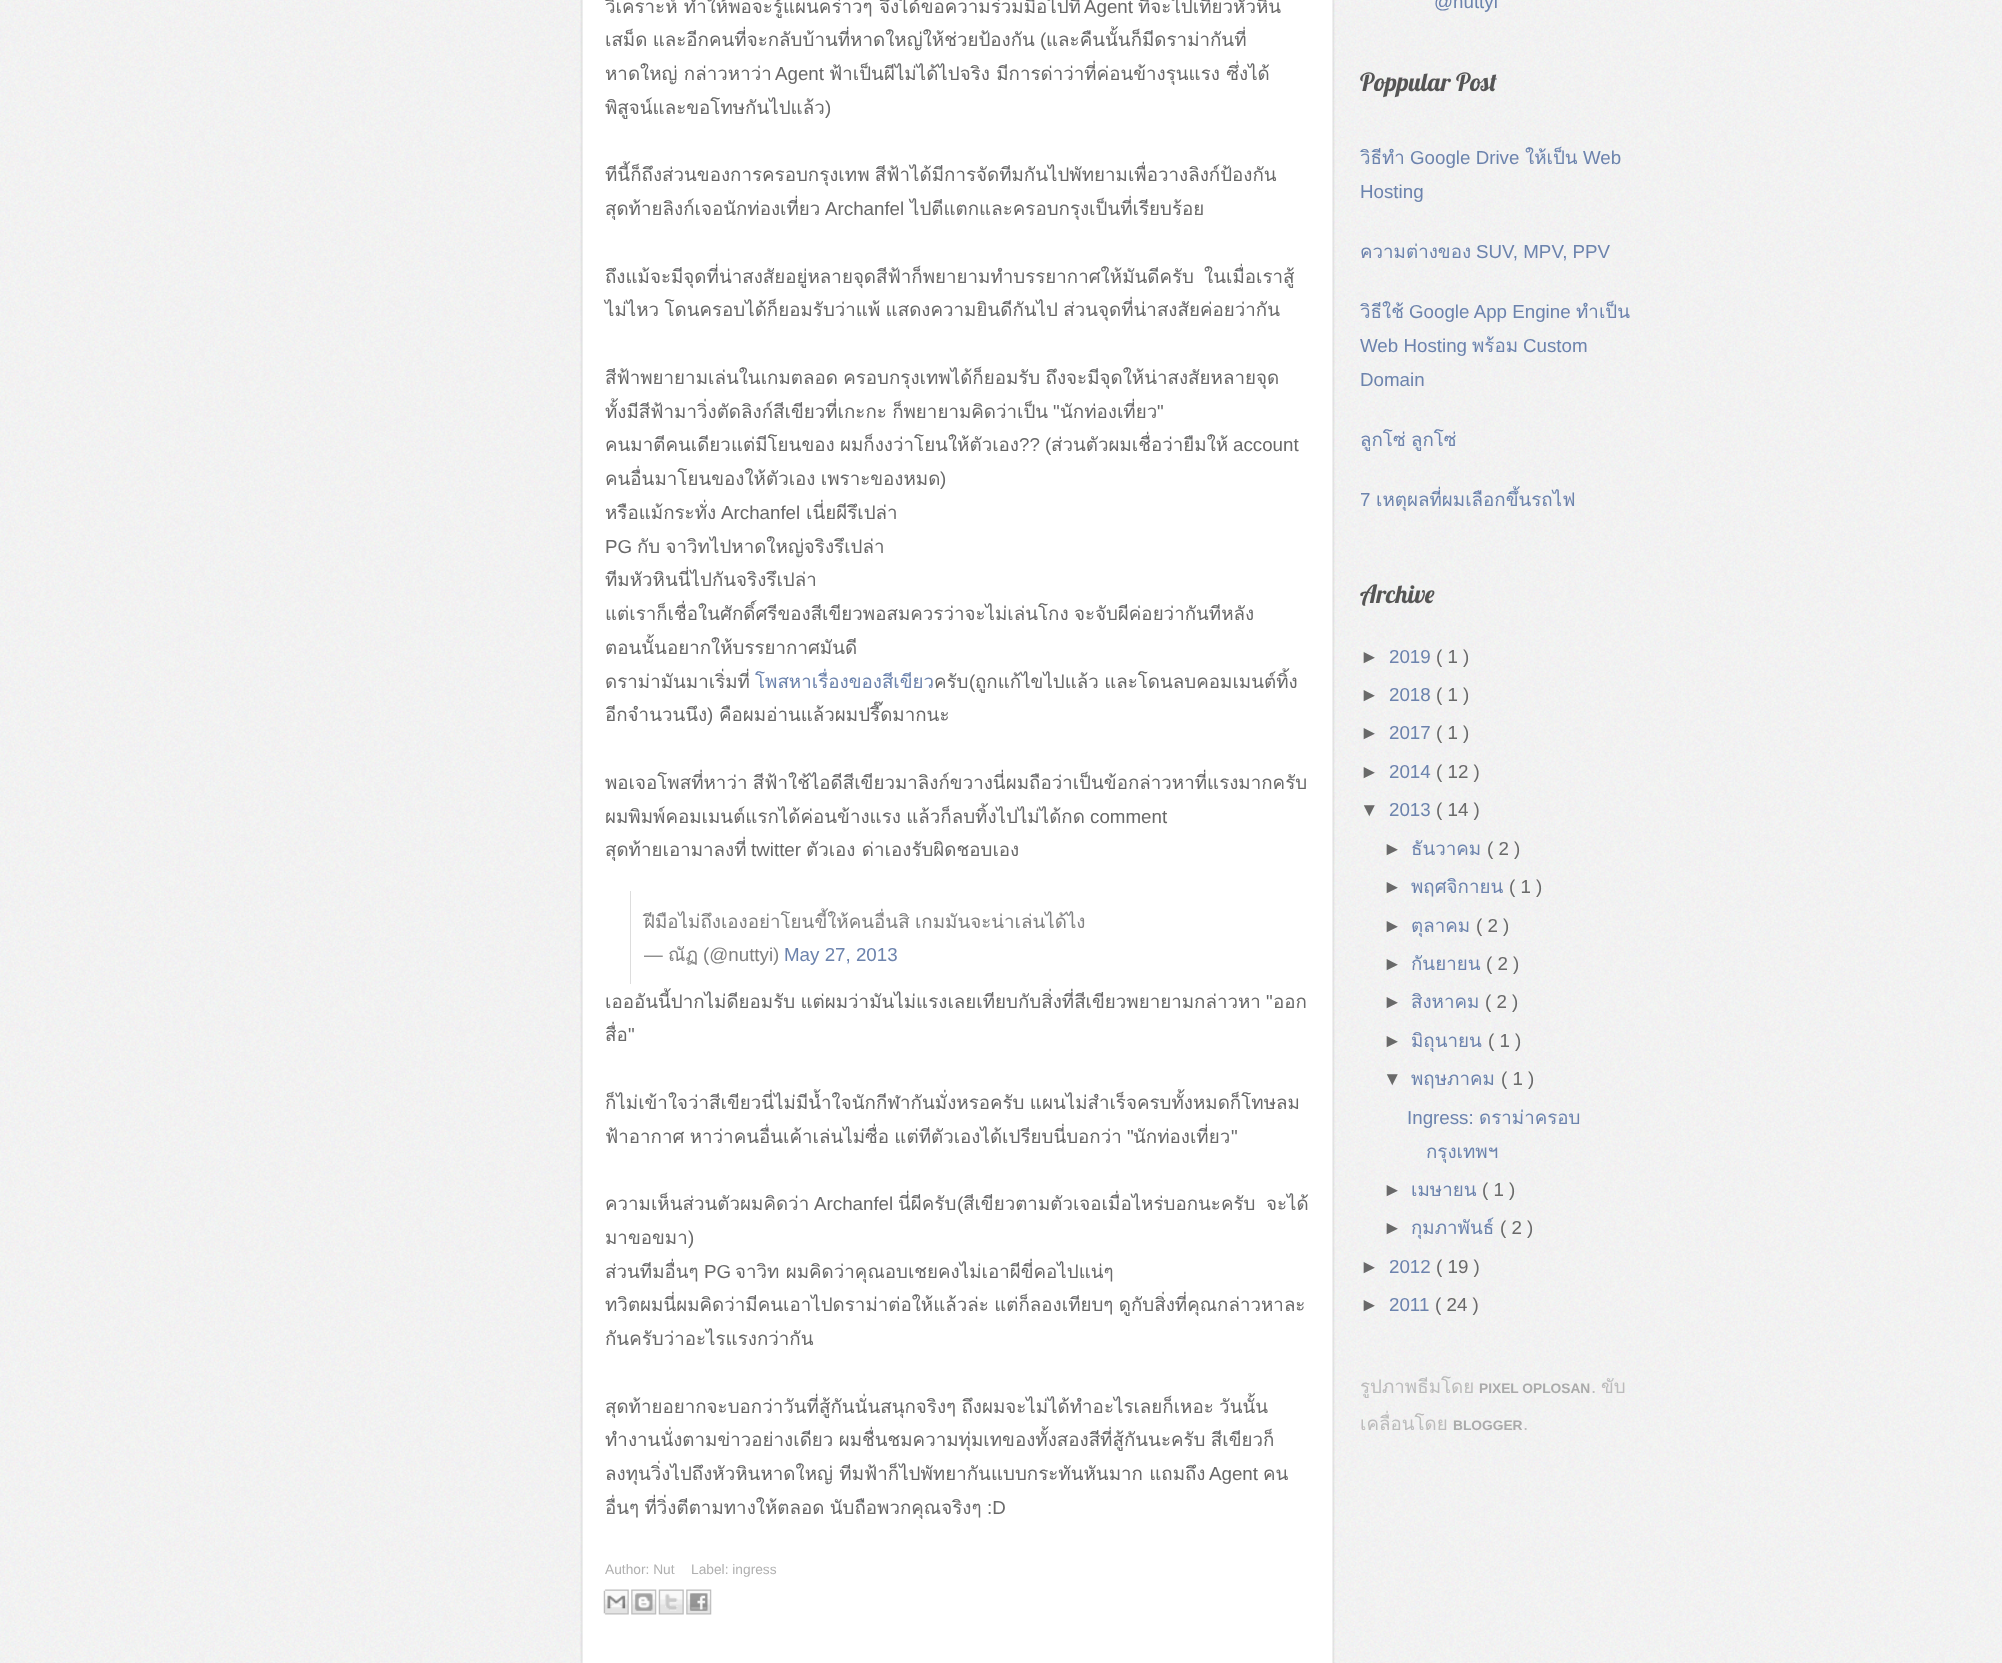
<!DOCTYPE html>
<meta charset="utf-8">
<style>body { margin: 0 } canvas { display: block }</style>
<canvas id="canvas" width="2002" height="1663"></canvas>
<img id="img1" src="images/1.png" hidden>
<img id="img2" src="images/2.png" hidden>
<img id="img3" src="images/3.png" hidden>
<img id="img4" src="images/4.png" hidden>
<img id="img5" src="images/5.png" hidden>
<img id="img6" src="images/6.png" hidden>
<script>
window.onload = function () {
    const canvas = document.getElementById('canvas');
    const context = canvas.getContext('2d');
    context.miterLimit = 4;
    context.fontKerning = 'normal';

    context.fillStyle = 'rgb(255, 255, 255)';
    context.fillRect(0, 0, 2002, 1663);
    context.drawImage(document.getElementById('img1'), 0, 0, 2002, 1663);
    context.drawImage(document.getElementById('img2'), 580, 0, 755, 1663);
    context.fillStyle = 'rgb(221, 221, 221)';
    context.fillRect(630, 891, 1, 93);
    context.drawImage(document.getElementById('img3'), 603, 1589, 26, 26);
    context.drawImage(document.getElementById('img4'), 631, 1589, 26, 26);
    context.drawImage(document.getElementById('img5'), 658, 1589, 26, 26);
    context.drawImage(document.getElementById('img6'), 686, 1589, 26, 26);
    context.font = '18.75px Loma';
    context.fillStyle = 'rgb(105, 105, 105)';
    context.fillText('วิเคราะห์ ทำให้พอจะรู้แผนคร่าวๆ จึงได้ขอความร่วมมือไปที่', 605, 13);
    context.font = '18.75px Liberation Sans';
    context.fillText('Agent', 1084, 13);
    context.font = '18.75px Loma';
    context.fillText('ที่จะไปเที่ยวหัวหิน', 1138, 13);
    context.wordSpacing = '-1px';
    context.fillText('เสม็ด และอีกคนที่จะกลับบ้านที่หาดใหญ่ให้ช่วยป้องกัน', 605, 46);
    context.wordSpacing = '0px';
    context.font = '18.75px Liberation Sans';
    context.fillText('(', 1040, 46);
    context.font = '18.75px Loma';
    context.fillText('และคืนนั้นก็มีดราม่ากันที่', 1046, 46);
    context.fillText('หาดใหญ่ กล่าวหาว่า', 605, 80);
    context.font = '18.75px Liberation Sans';
    context.fillText('Agent', 775, 80);
    context.font = '18.75px Loma';
    context.fillText('ฟ้าเป็นผีไม่ได้ไปจริง มีการด่าว่าที่ค่อนข้างรุนแรง ซึ่งได้', 829, 80);
    context.fillText('พิสูจน์และขอโทษกันไปแล้ว', 605, 114);
    context.font = '18.75px Liberation Sans';
    context.fillText(')', 825, 114);
    context.wordSpacing = '-1px';
    context.font = '18.75px Loma';
    context.fillText('ทีนี้ก็ถึงส่วนของการครอบกรุงเทพ สีฟ้าได้มีการจัดทีมกันไปพัทยามเพื่อวางลิงก์ป้องกัน', 605, 181);
    context.wordSpacing = '0px';
    context.fillText('สุดท้ายลิงก์เจอนักท่องเที่ยว', 605, 215);
    context.font = '18.75px Liberation Sans';
    context.fillText('Archanfel', 825, 215);
    context.font = '18.75px Loma';
    context.fillText('ไปตีแตกและครอบกรุงเป็นที่เรียบร้อย', 910, 215);
    context.fillText('ถึงแม้จะมีจุดที่น่าสงสัยอยู่หลายจุดสีฟ้าก็พยายามทำบรรยากาศให้มันดีครับ', 605, 283);
    context.fillText('ในเมื่อเราสู้', 1204, 283);
    context.wordSpacing = '-1px';
    context.fillText('ไม่ไหว โดนครอบได้ก็ยอมรับว่าแพ้ แสดงความยินดีกันไป ส่วนจุดที่น่าสงสัยค่อยว่ากัน', 605, 316);
    context.fillText('สีฟ้าพยายามเล่นในเกมตลอด ครอบกรุงเทพได้ก็ยอมรับ ถึงจะมีจุดให้น่าสงสัยหลายจุด', 605, 384);
    context.fillText('ทั้งมีสีฟ้ามาวิ่งตัดลิงก์สีเขียวที่เกะกะ ก็พยายามคิดว่าเป็น', 605, 418);
    context.wordSpacing = '0px';
    context.font = '18.75px Liberation Sans';
    context.fillText('"', 1053, 418);
    context.font = '18.75px Loma';
    context.fillText('นักท่องเที่ยว', 1060, 418);
    context.font = '18.75px Liberation Sans';
    context.fillText('"', 1157, 418);
    context.font = '18.75px Loma';
    context.fillText('คนมาตีคนเดียวแต่มีโยนของ', 605, 451);
    context.fillText('ผมก็งงว่าโยนให้ตัวเอง', 840, 451);
    context.font = '18.75px Liberation Sans';
    context.fillText('?? (', 1019, 451);
    context.font = '18.75px Loma';
    context.fillText('ส่วนตัวผมเชื่อว่ายืมให้', 1051, 451);
    context.font = '18.75px Liberation Sans';
    context.fillText('account', 1233, 451);
    context.wordSpacing = '-1px';
    context.font = '18.75px Loma';
    context.fillText('คนอื่นมาโยนของให้ตัวเอง เพราะของหมด', 605, 485);
    context.wordSpacing = '0px';
    context.font = '18.75px Liberation Sans';
    context.fillText(')', 940, 485);
    context.font = '18.75px Loma';
    context.fillText('หรือแม้กระทั่ง', 605, 519);
    context.font = '18.75px Liberation Sans';
    context.fillText('Archanfel', 721, 519);
    context.font = '18.75px Loma';
    context.fillText('เนี่ยผีรึเปล่า', 806, 519);
    context.font = '18.75px Liberation Sans';
    context.fillText('PG', 605, 553);
    context.wordSpacing = '-1px';
    context.font = '18.75px Loma';
    context.fillText('กับ จาวิทไปหาดใหญ่จริงรึเปล่า', 637, 553);
    context.wordSpacing = '0px';
    context.fillText('ทีมหัวหินนี่ไปกันจริงรึเปล่า', 605, 586);
    context.wordSpacing = '-1px';
    context.fillText('แต่เราก็เชื่อในศักดิ์ศรีของสีเขียวพอสมควรว่าจะไม่เล่นโกง จะจับผีค่อยว่ากันทีหลัง', 605, 620);
    context.wordSpacing = '0px';
    context.fillText('ตอนนั้นอยากให้บรรยากาศมันดี', 605, 654);
    context.fillText('ดราม่ามันมาเริ่มที่', 605, 688);
    context.fillStyle = 'rgb(108, 131, 173)';
    context.fillText('โพสหาเรื่องของสีเขียว', 755, 688);
    context.fillStyle = 'rgb(105, 105, 105)';
    context.fillText('ครับ', 934, 688);
    context.font = '18.75px Liberation Sans';
    context.fillText('(', 969, 688);
    context.wordSpacing = '-1px';
    context.font = '18.75px Loma';
    context.fillText('ถูกแก้ไขไปแล้ว และโดนลบคอมเมนต์ทิ้ง', 975, 688);
    context.wordSpacing = '0px';
    context.fillText('อีกจำนวนนึง', 605, 721);
    context.font = '18.75px Liberation Sans';
    context.fillText(')', 707, 721);
    context.font = '18.75px Loma';
    context.fillText('คือผมอ่านแล้วผมปรี๊ดมากนะ', 719, 721);
    context.wordSpacing = '-1px';
    context.fillText('พอเจอโพสที่หาว่า สีฟ้าใช้ไอดีสีเขียวมาลิงก์ขวางนี่ผมถือว่าเป็นข้อกล่าวหาที่แรงมากครับ', 605, 789);
    context.fillText('ผมพิมพ์คอมเมนต์แรกได้ค่อนข้างแรง แล้วก็ลบทิ้งไปไม่ได้กด', 605, 823);
    context.wordSpacing = '0px';
    context.font = '18.75px Liberation Sans';
    context.fillText('comment', 1090, 823);
    context.font = '18.75px Loma';
    context.fillText('สุดท้ายเอามาลงที่', 605, 856);
    context.font = '18.75px Liberation Sans';
    context.fillText('twitter', 751, 856);
    context.font = '18.75px Loma';
    context.fillText('ตัวเอง ด่าเองรับผิดชอบเอง', 806, 856);
    context.wordSpacing = '-1px';
    context.fillStyle = 'rgb(130, 130, 130)';
    context.fillText('ฝีมือไม่ถึงเองอย่าโยนขี้ให้คนอื่นสิ เกมมันจะน่าเล่นได้ไง', 644, 928);
    context.wordSpacing = '0px';
    context.font = '18.75px Liberation Sans';
    context.fillText('—', 644, 961);
    context.font = '18.75px Loma';
    context.fillText('ณัฏ', 668, 961);
    context.font = '18.75px Liberation Sans';
    context.fillText('(@nuttyi)', 703, 961);
    context.fillStyle = 'rgb(108, 131, 173)';
    context.fillText('May 27, 2013', 784, 961);
    context.wordSpacing = '-1px';
    context.font = '18.75px Loma';
    context.fillStyle = 'rgb(105, 105, 105)';
    context.fillText('เอออันนี้ปากไม่ดียอมรับ แต่ผมว่ามันไม่แรงเลยเทียบกับสิ่งที่สีเขียวพยายามกล่าวหา', 605, 1008);
    context.wordSpacing = '0px';
    context.font = '18.75px Liberation Sans';
    context.fillText('"', 1266, 1008);
    context.font = '18.75px Loma';
    context.fillText('ออก', 1273, 1008);
    context.fillText('สื่อ', 605, 1041);
    context.font = '18.75px Liberation Sans';
    context.fillText('"', 628, 1041);
    context.wordSpacing = '-1px';
    context.font = '18.75px Loma';
    context.fillText('ก็ไม่เข้าใจว่าสีเขียวนี่ไม่มีน้ำใจนักกีฬากันมั่งหรอครับ แผนไม่สำเร็จครบทั้งหมดก็โทษลม', 605, 1109);
    context.fillText('ฟ้าอากาศ หาว่าคนอื่นเค้าเล่นไม่ซื่อ แต่ทีตัวเองได้เปรียบนี่บอกว่า', 605, 1143);
    context.wordSpacing = '0px';
    context.font = '18.75px Liberation Sans';
    context.fillText('"', 1127, 1143);
    context.font = '18.75px Loma';
    context.fillText('นักท่องเที่ยว', 1133, 1143);
    context.font = '18.75px Liberation Sans';
    context.fillText('"', 1231, 1143);
    context.font = '18.75px Loma';
    context.fillText('ความเห็นส่วนตัวผมคิดว่า', 605, 1210);
    context.font = '18.75px Liberation Sans';
    context.fillText('Archanfel', 814, 1210);
    context.font = '18.75px Loma';
    context.fillText('นี่ผีครับ', 898, 1210);
    context.fillText('จะได้', 1266, 1210);
    context.font = '18.75px Liberation Sans';
    context.fillText('(', 957, 1210);
    context.font = '18.75px Loma';
    context.fillText('สีเขียวตามตัวเจอเมื่อไหร่บอกนะครับ', 963, 1210);
    context.fillText('มาขอขมา', 605, 1244);
    context.font = '18.75px Liberation Sans';
    context.fillText(')', 688, 1244);
    context.font = '18.75px Loma';
    context.fillText('ส่วนทีมอื่นๆ', 605, 1278);
    context.font = '18.75px Liberation Sans';
    context.fillText('PG', 704, 1278);
    context.font = '18.75px Loma';
    context.fillText('จาวิท ผมคิดว่าคุณอบเชยคงไม่เอาผีขี่คอไปแน่ๆ', 735, 1278);
    context.wordSpacing = '-1px';
    context.fillText('ทวิตผมนี่ผมคิดว่ามีคนเอาไปดราม่าต่อให้แล้วล่ะ แต่ก็ลองเทียบๆ ดูกับสิ่งที่คุณกล่าวหาละ', 605, 1311);
    context.wordSpacing = '0px';
    context.fillText('กันครับว่าอะไรแรงกว่ากัน', 605, 1345);
    context.wordSpacing = '-1px';
    context.fillText('สุดท้ายอยากจะบอกว่าวันที่สู้กันนั่นสนุกจริงๆ ถึงผมจะไม่ได้ทำอะไรเลยก็เหอะ วันนั้น', 605, 1413);
    context.fillText('ทำงานนั่งตามข่าวอย่างเดียว ผมชื่นชมความทุ่มเทของทั้งสองสีที่สู้กันนะครับ สีเขียวก็', 605, 1446);
    context.wordSpacing = '0px';
    context.fillText('ลงทุนวิ่งไปถึงหัวหินหาดใหญ่ ทีมฟ้าก็ไปพัทยากันแบบกระทันหันมาก แถมถึง', 605, 1480);
    context.font = '18.75px Liberation Sans';
    context.fillText('Agent', 1209, 1480);
    context.font = '18.75px Loma';
    context.fillText('คน', 1263, 1480);
    context.wordSpacing = '-1px';
    context.fillText('อื่นๆ ที่วิ่งตีตามทางให้ตลอด นับถือพวกคุณจริงๆ', 605, 1514);
    context.wordSpacing = '0px';
    context.font = '18.75px Liberation Sans';
    context.fillText(':D', 987, 1514);
    context.font = '13.75px Liberation Sans';
    context.fillStyle = 'rgb(176, 176, 176)';
    context.fillText('Author: Nut', 605, 1574);
    context.fillText('Label: ingress', 691, 1574);
    context.font = '18.75px Liberation Sans';
    context.fillStyle = 'rgb(108, 131, 173)';
    context.fillText('@nuttyi', 1434, 8);
    context.font = '25px Lobster';
    context.fillStyle = 'rgb(85, 85, 85)';
    context.fillText('Poppular Post', 1360, 91);
    context.font = '18.75px Loma';
    context.fillStyle = 'rgb(108, 131, 173)';
    context.fillText('วิธีทำ', 1360, 164);
    context.font = '18.75px Liberation Sans';
    context.fillText('Google Drive', 1410, 164);
    context.font = '18.75px Loma';
    context.fillText('ให้เป็น', 1525, 164);
    context.font = '18.75px Liberation Sans';
    context.fillText('Web', 1583, 164);
    context.fillText('Hosting', 1360, 198);
    context.font = '18.75px Loma';
    context.fillText('ความต่างของ', 1360, 258);
    context.font = '18.75px Liberation Sans';
    context.fillText('SUV, MPV, PPV', 1476, 258);
    context.font = '18.75px Loma';
    context.fillText('วิธีใช้', 1360, 318);
    context.font = '18.75px Liberation Sans';
    context.fillText('Google App Engine', 1409, 318);
    context.font = '18.75px Loma';
    context.fillText('ทำเป็น', 1576, 318);
    context.font = '18.75px Liberation Sans';
    context.fillText('Web Hosting', 1360, 352);
    context.font = '18.75px Loma';
    context.fillText('พร้อม', 1472, 352);
    context.font = '18.75px Liberation Sans';
    context.fillText('Custom', 1523, 352);
    context.fillText('Domain', 1360, 386);
    context.wordSpacing = '-1px';
    context.font = '18.75px Loma';
    context.fillText('ลูกโซ่ ลูกโซ่', 1360, 446);
    context.wordSpacing = '0px';
    context.font = '18.75px Liberation Sans';
    context.fillText('7', 1360, 506);
    context.font = '18.75px Loma';
    context.fillText('เหตุผลที่ผมเลือกขึ้นรถไฟ', 1376, 506);
    context.font = '25px Lobster';
    context.fillStyle = 'rgb(85, 85, 85)';
    context.fillText('Archive', 1360, 603);
    context.font = '18.75px Liberation Sans';
    context.fillStyle = 'rgb(105, 105, 105)';
    context.fillText('►', 1360, 663);
    context.fillStyle = 'rgb(108, 131, 173)';
    context.fillText('2019', 1389, 663);
    context.fillStyle = 'rgb(105, 105, 105)';
    context.fillText('( 1 )', 1436, 663);
    context.fillText('►', 1360, 701);
    context.fillStyle = 'rgb(108, 131, 173)';
    context.fillText('2018', 1389, 701);
    context.fillStyle = 'rgb(105, 105, 105)';
    context.fillText('( 1 )', 1436, 701);
    context.fillText('►', 1360, 739);
    context.fillStyle = 'rgb(108, 131, 173)';
    context.fillText('2017', 1389, 739);
    context.fillStyle = 'rgb(105, 105, 105)';
    context.fillText('( 1 )', 1436, 739);
    context.fillText('►', 1360, 778);
    context.fillStyle = 'rgb(108, 131, 173)';
    context.fillText('2014', 1389, 778);
    context.fillStyle = 'rgb(105, 105, 105)';
    context.fillText('( 12 )', 1436, 778);
    context.fillText('▼', 1360, 816);
    context.fillStyle = 'rgb(108, 131, 173)';
    context.fillText('2013', 1389, 816);
    context.fillStyle = 'rgb(105, 105, 105)';
    context.fillText('( 14 )', 1436, 816);
    context.fillText('►', 1383, 855);
    context.font = '18.75px Loma';
    context.fillStyle = 'rgb(108, 131, 173)';
    context.fillText('ธันวาคม', 1411, 855);
    context.font = '18.75px Liberation Sans';
    context.fillStyle = 'rgb(105, 105, 105)';
    context.fillText('( 2 )', 1487, 855);
    context.fillText('►', 1383, 893);
    context.font = '18.75px Loma';
    context.fillStyle = 'rgb(108, 131, 173)';
    context.fillText('พฤศจิกายน', 1411, 893);
    context.font = '18.75px Liberation Sans';
    context.fillStyle = 'rgb(105, 105, 105)';
    context.fillText('( 1 )', 1509, 893);
    context.fillText('►', 1383, 932);
    context.font = '18.75px Loma';
    context.fillStyle = 'rgb(108, 131, 173)';
    context.fillText('ตุลาคม', 1411, 932);
    context.font = '18.75px Liberation Sans';
    context.fillStyle = 'rgb(105, 105, 105)';
    context.fillText('( 2 )', 1476, 932);
    context.fillText('►', 1383, 970);
    context.font = '18.75px Loma';
    context.fillStyle = 'rgb(108, 131, 173)';
    context.fillText('กันยายน', 1411, 970);
    context.font = '18.75px Liberation Sans';
    context.fillStyle = 'rgb(105, 105, 105)';
    context.fillText('( 2 )', 1486, 970);
    context.fillText('►', 1383, 1008);
    context.font = '18.75px Loma';
    context.fillStyle = 'rgb(108, 131, 173)';
    context.fillText('สิงหาคม', 1411, 1008);
    context.font = '18.75px Liberation Sans';
    context.fillStyle = 'rgb(105, 105, 105)';
    context.fillText('( 2 )', 1485, 1008);
    context.fillText('►', 1383, 1047);
    context.font = '18.75px Loma';
    context.fillStyle = 'rgb(108, 131, 173)';
    context.fillText('มิถุนายน', 1411, 1047);
    context.font = '18.75px Liberation Sans';
    context.fillStyle = 'rgb(105, 105, 105)';
    context.fillText('( 1 )', 1488, 1047);
    context.fillText('▼', 1383, 1085);
    context.font = '18.75px Loma';
    context.fillStyle = 'rgb(108, 131, 173)';
    context.fillText('พฤษภาคม', 1411, 1085);
    context.font = '18.75px Liberation Sans';
    context.fillStyle = 'rgb(105, 105, 105)';
    context.fillText('( 1 )', 1501, 1085);
    context.fillStyle = 'rgb(108, 131, 173)';
    context.fillText('Ingress:', 1407, 1124);
    context.font = '18.75px Loma';
    context.fillText('ดราม่าครอบ', 1479, 1124);
    context.fillText('กรุงเทพฯ', 1426, 1158);
    context.font = '18.75px Liberation Sans';
    context.fillStyle = 'rgb(105, 105, 105)';
    context.fillText('►', 1383, 1196);
    context.font = '18.75px Loma';
    context.fillStyle = 'rgb(108, 131, 173)';
    context.fillText('เมษายน', 1411, 1196);
    context.font = '18.75px Liberation Sans';
    context.fillStyle = 'rgb(105, 105, 105)';
    context.fillText('( 1 )', 1482, 1196);
    context.fillText('►', 1383, 1234);
    context.font = '18.75px Loma';
    context.fillStyle = 'rgb(108, 131, 173)';
    context.fillText('กุมภาพันธ์', 1411, 1234);
    context.font = '18.75px Liberation Sans';
    context.fillStyle = 'rgb(105, 105, 105)';
    context.fillText('( 2 )', 1500, 1234);
    context.fillText('►', 1360, 1273);
    context.fillStyle = 'rgb(108, 131, 173)';
    context.fillText('2012', 1389, 1273);
    context.fillStyle = 'rgb(105, 105, 105)';
    context.fillText('( 19 )', 1436, 1273);
    context.fillText('►', 1360, 1311);
    context.fillStyle = 'rgb(108, 131, 173)';
    context.fillText('2011', 1389, 1311);
    context.fillStyle = 'rgb(105, 105, 105)';
    context.fillText('( 24 )', 1435, 1311);
    context.font = '18.75px Loma';
    context.fillStyle = 'rgb(187, 187, 187)';
    context.fillText('รูปภาพธีมโดย', 1360, 1393);
    context.font = 'bold 13.75px Liberation Sans';
    context.fillStyle = 'rgb(170, 170, 170)';
    context.fillText('PIXEL OPLOSAN', 1479, 1393);
    context.font = '18.75px Liberation Sans';
    context.fillStyle = 'rgb(187, 187, 187)';
    context.fillText('.', 1591, 1393);
    context.font = '18.75px Loma';
    context.fillText('ขับ', 1601, 1393);
    context.fillText('เคลื่อนโดย', 1360, 1430);
    context.font = 'bold 13.75px Liberation Sans';
    context.fillStyle = 'rgb(170, 170, 170)';
    context.fillText('BLOGGER', 1453, 1430);
    context.font = '18.75px Liberation Sans';
    context.fillStyle = 'rgb(187, 187, 187)';
    context.fillText('.', 1523, 1430);
};
</script>
